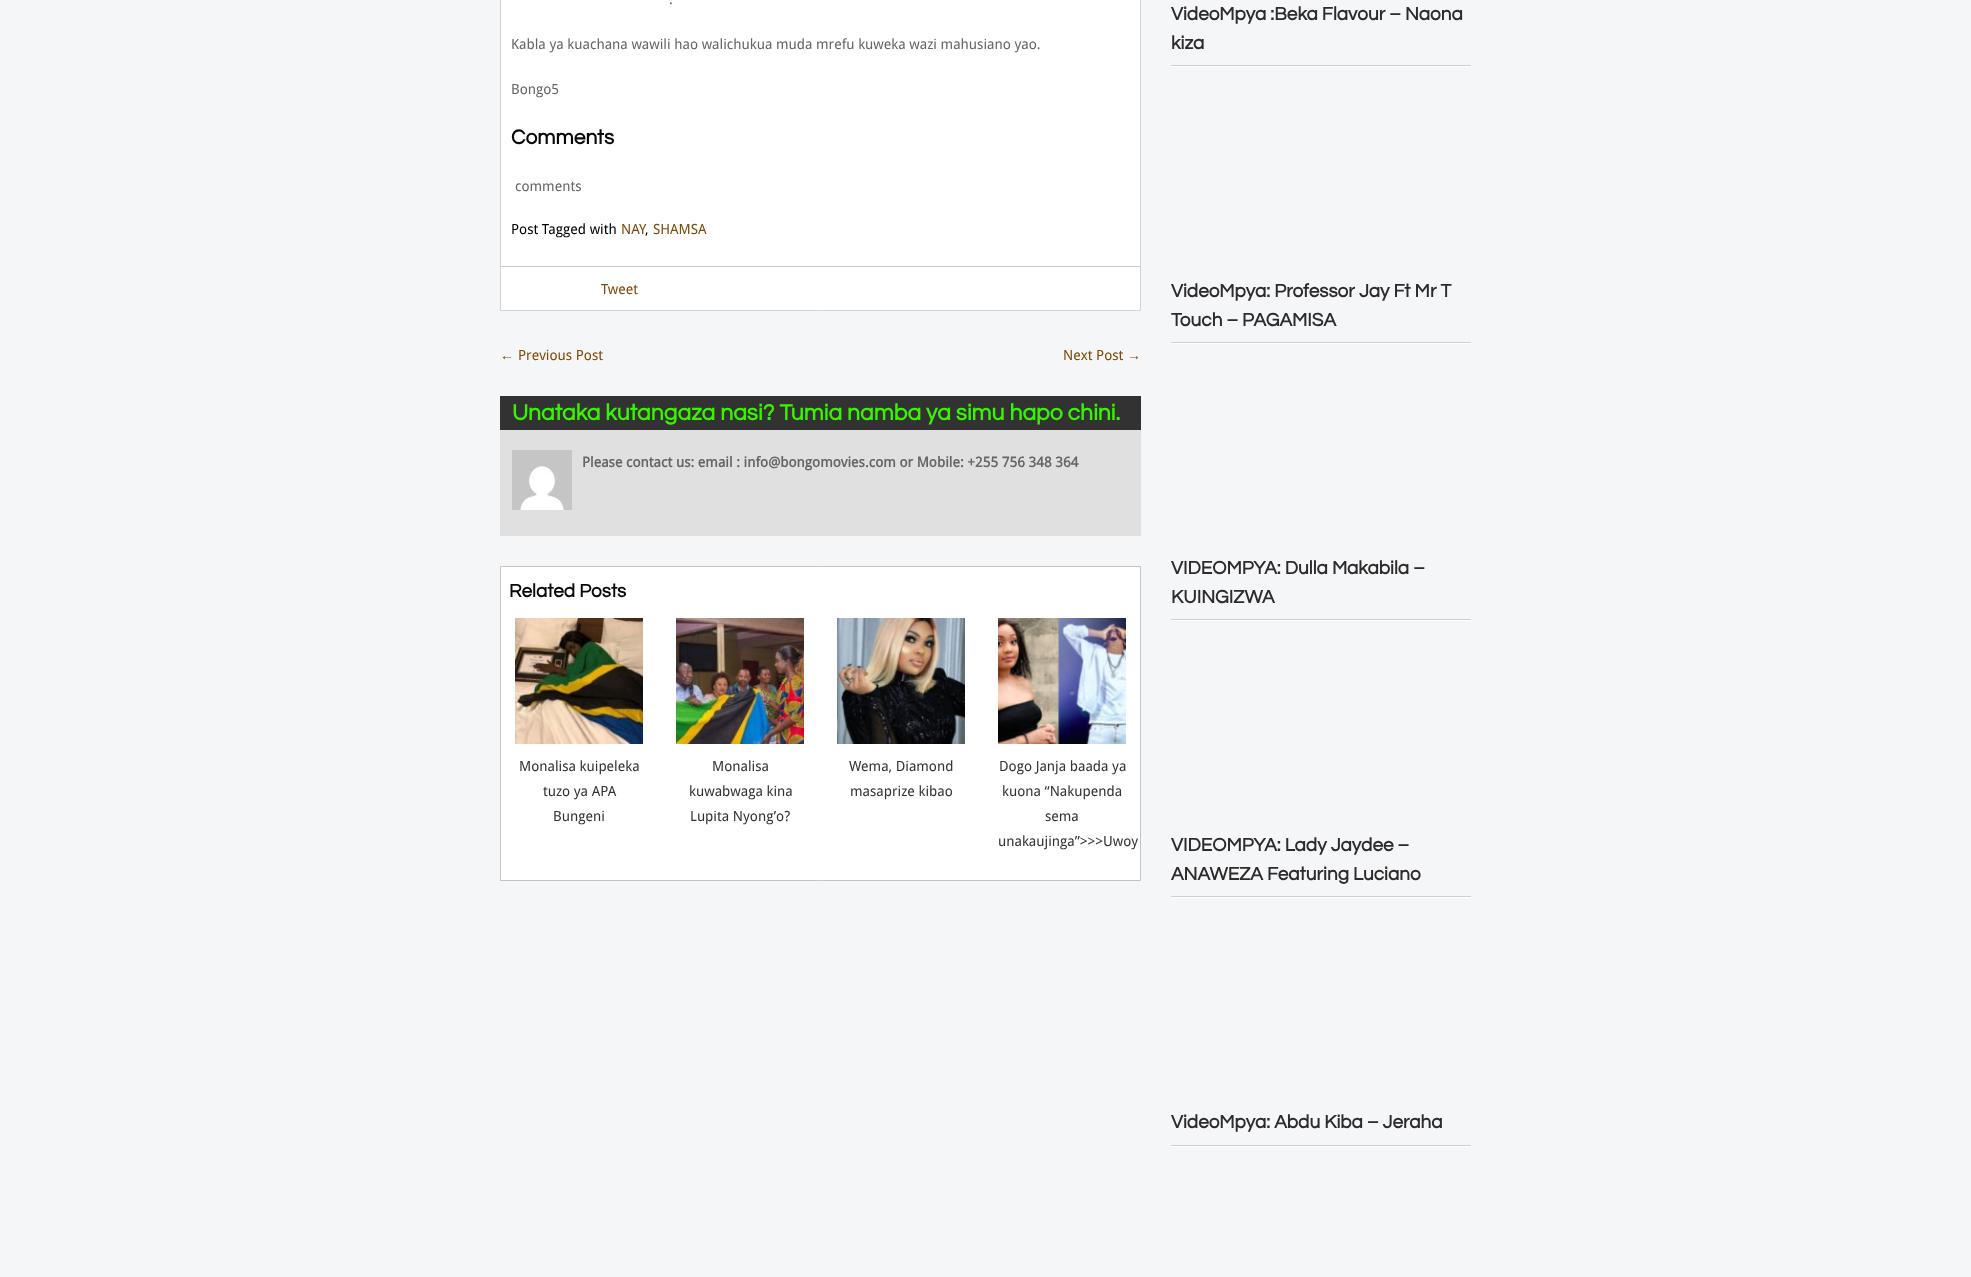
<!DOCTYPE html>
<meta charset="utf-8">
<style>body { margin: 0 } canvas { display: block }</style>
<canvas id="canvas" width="1971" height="1277"></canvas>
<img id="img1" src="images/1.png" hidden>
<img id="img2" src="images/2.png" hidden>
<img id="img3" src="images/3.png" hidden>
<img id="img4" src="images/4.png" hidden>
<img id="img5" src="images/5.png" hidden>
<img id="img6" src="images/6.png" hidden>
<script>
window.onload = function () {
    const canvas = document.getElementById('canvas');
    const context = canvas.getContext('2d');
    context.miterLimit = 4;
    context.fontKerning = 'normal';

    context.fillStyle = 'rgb(245, 246, 247)';
    context.fillRect(0, 0, 1971, 1277);
    context.fillStyle = 'rgb(255, 255, 255)';
    context.beginPath();
    context.rect(500.5, -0.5, 640, 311);
    context.fill();
    context.strokeStyle = 'rgb(211, 211, 211)';
    context.stroke();
    context.fillStyle = 'rgb(204, 204, 204)';
    context.fillRect(501, 266, 639, 1);
    context.fillStyle = 'rgb(224, 224, 224)';
    context.fillRect(500, 430, 641, 106);
    context.fillStyle = 'rgb(50, 50, 50)';
    context.fillRect(500, 396, 641, 34);
    context.drawImage(document.getElementById('img1'), 512, 450, 60, 60);
    context.fillStyle = 'rgb(255, 255, 255)';
    context.beginPath();
    context.rect(500.5, 566.5, 640, 314);
    context.fill();
    context.strokeStyle = 'rgb(195, 195, 195)';
    context.stroke();
    context.drawImage(document.getElementById('img2'), 515, 618, 128, 126);
    context.drawImage(document.getElementById('img3'), 676, 618, 128, 126);
    context.drawImage(document.getElementById('img4'), 837, 618, 128, 126);
    context.drawImage(document.getElementById('img5'), 998, 618, 128, 126);
    context.drawImage(document.getElementById('img6'), 1171, 65, 300, 2);
    context.drawImage(document.getElementById('img6'), 1171, 342, 300, 2);
    context.drawImage(document.getElementById('img6'), 1171, 619, 300, 2);
    context.drawImage(document.getElementById('img6'), 1171, 896, 300, 2);
    context.drawImage(document.getElementById('img6'), 1171, 1145, 300, 2);
    context.font = '14px Droid Sans';
    context.fillStyle = 'rgb(102, 102, 102)';
    context.fillText('.', 669, 4);
    context.fillText('Kabla ya kuachana wawili hao walichukua muda mrefu kuweka wazi mahusiano yao.', 511, 49);
    context.fillText('Bongo5', 511, 94);
    context.font = 'bold 21px Questrial';
    context.fillStyle = 'rgb(9, 9, 9)';
    context.fillText('Comments', 511, 144);
    context.font = '14px Droid Sans';
    context.fillStyle = 'rgb(102, 102, 102)';
    context.fillText('comments', 515, 191);
    context.fillStyle = 'rgb(0, 0, 0)';
    context.fillText('Post Tagged with', 511, 234);
    context.fillStyle = 'rgb(127, 73, 9)';
    context.fillText('NAY', 621, 234);
    context.fillText('SHAMSA', 653, 234);
    context.fillStyle = 'rgb(0, 0, 0)';
    context.fillText(',', 645, 234);
    context.fillStyle = 'rgb(127, 73, 9)';
    context.fillText('Tweet', 601, 294);
    context.font = '14px Liberation Sans';
    context.fillText('←', 500, 360);
    context.font = '14px Droid Sans';
    context.fillText('Previous Post', 518, 360);
    context.fillText('Next Post', 1063, 360);
    context.font = '14px Liberation Sans';
    context.fillText('→', 1127, 360);
    context.font = 'bold 23px Questrial';
    context.fillStyle = 'rgb(57, 244, 0)';
    context.fillText('Unataka kutangaza nasi? Tumia namba ya simu hapo chini.', 512, 420);
    context.font = 'bold 14px Droid Sans';
    context.fillStyle = 'rgb(102, 102, 102)';
    context.fillText('Please contact us: email : info@bongomovies.com or Mobile: +255 756 348 364', 582, 467);
    context.font = 'bold 19px Questrial';
    context.fillStyle = 'rgb(9, 9, 9)';
    context.fillText('Related Posts', 509, 597);
    context.font = '14px Droid Sans';
    context.fillStyle = 'rgb(51, 51, 51)';
    context.fillText('Monalisa kuipeleka', 519, 771);
    context.fillText('tuzo ya APA', 543, 796);
    context.fillText('Bungeni', 553, 821);
    context.fillText('Monalisa', 712, 771);
    context.fillText('kuwabwaga kina', 689, 796);
    context.fillText('Lupita Nyong’o?', 690, 821);
    context.fillText('Wema, Diamond', 849, 771);
    context.fillText('masaprize kibao', 850, 796);
    context.fillText('Dogo Janja baada ya', 999, 771);
    context.fillText('kuona “Nakupenda', 1002, 796);
    context.fillText('sema', 1045, 821);
    context.fillText('unakaujinga”>>>Uwoy', 998, 846);
    context.font = 'bold 19px Questrial';
    context.fillStyle = 'rgb(45, 43, 43)';
    context.fillText('VideoMpya :Beka Flavour – Naona', 1171, 20);
    context.fillText('kiza', 1171, 49);
    context.fillText('VideoMpya: Professor Jay Ft Mr T', 1171, 297);
    context.fillText('Touch – PAGAMISA', 1171, 326);
    context.fillText('VIDEOMPYA: Dulla Makabila –', 1171, 574);
    context.fillText('KUINGIZWA', 1171, 603);
    context.fillText('VIDEOMPYA: Lady Jaydee –', 1171, 851);
    context.fillText('ANAWEZA Featuring Luciano', 1171, 880);
    context.fillText('VideoMpya: Abdu Kiba – Jeraha', 1171, 1128);
};
</script>
